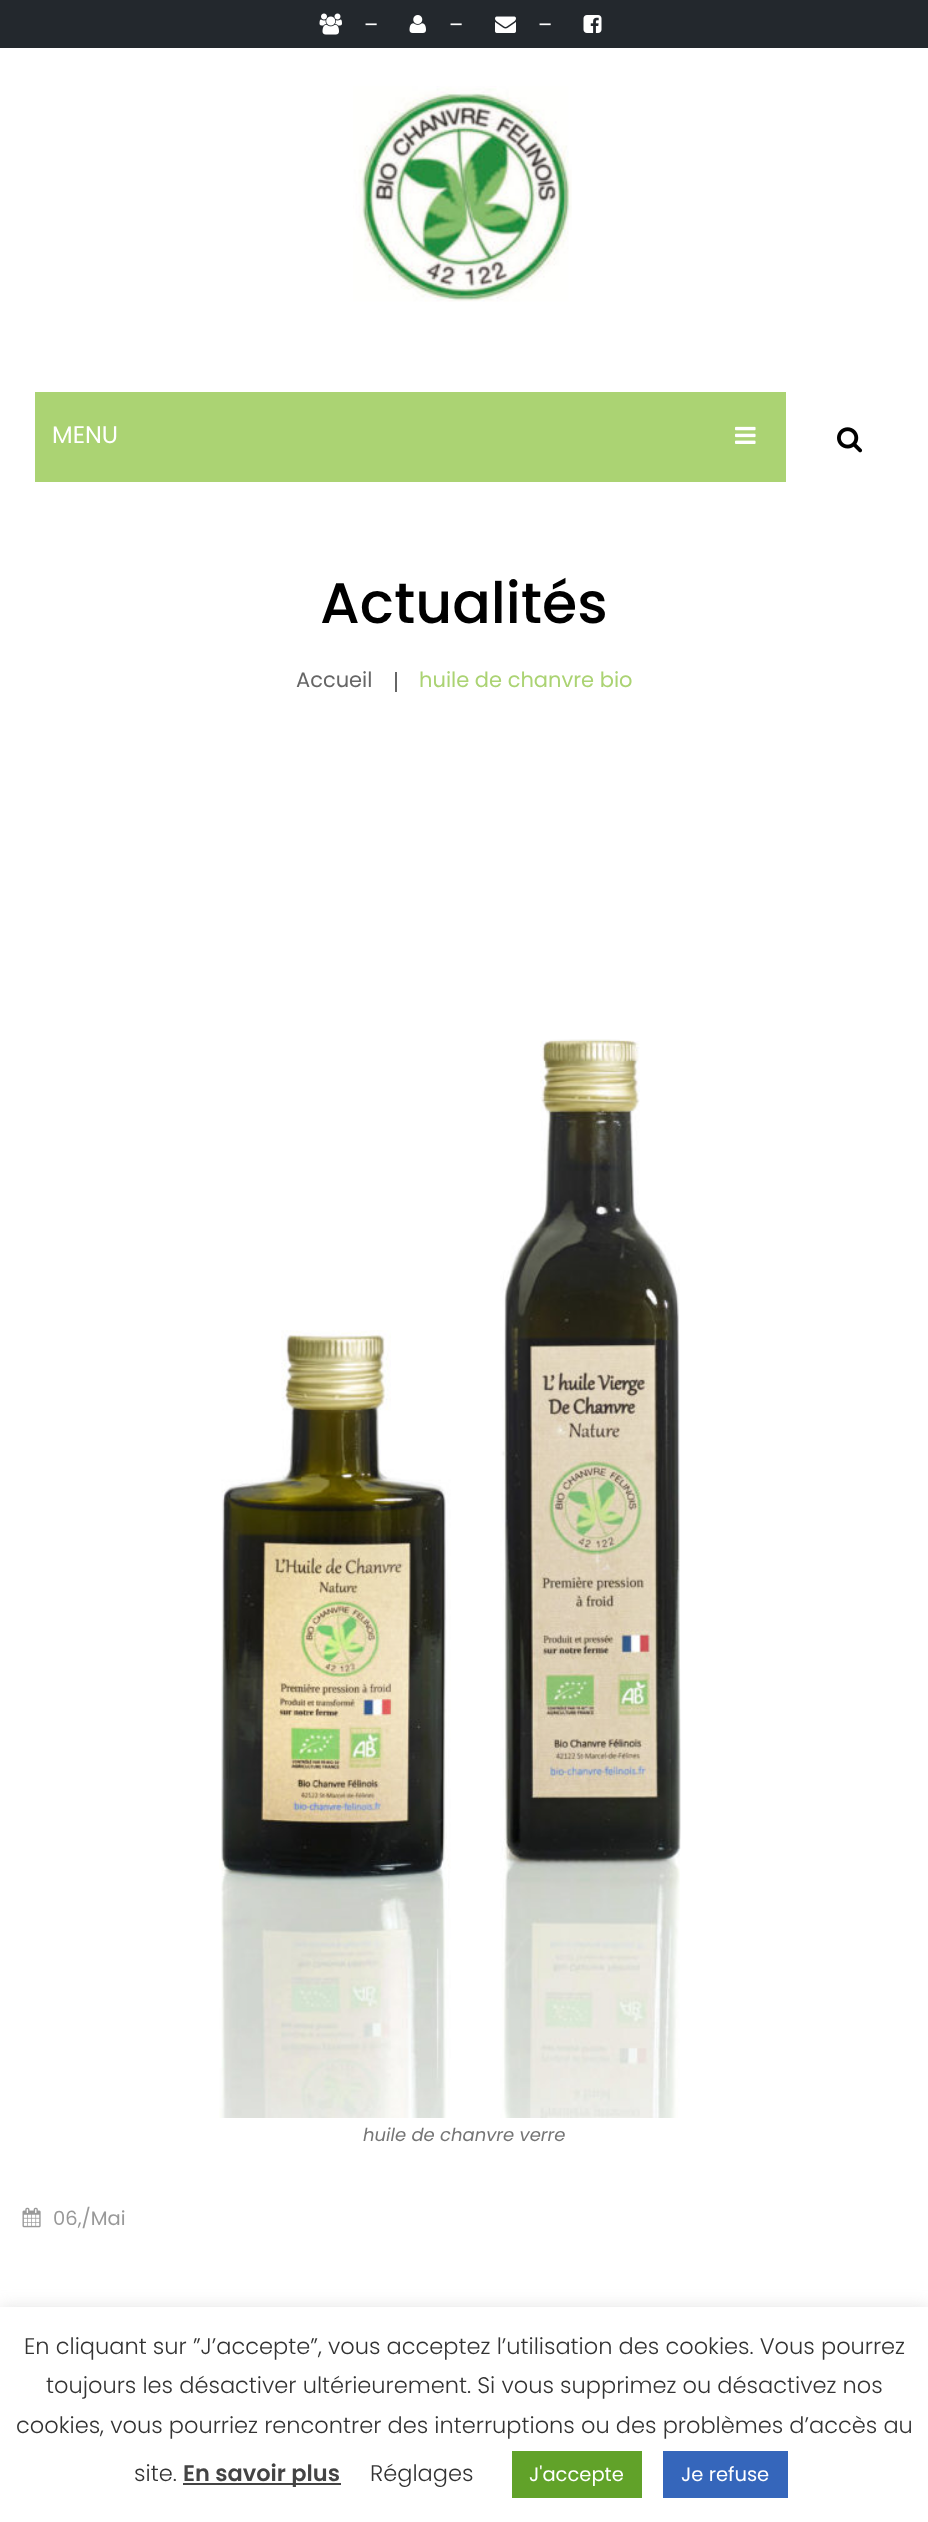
<!DOCTYPE html>
<meta charset="utf-8">
<style>body { margin: 0 } canvas { display: block }</style>
<canvas id="canvas" width="928" height="2522"></canvas>
<img id="img1" src="images/1.png" hidden>
<img id="img2" src="images/2.png" hidden>
<img id="img3" src="images/3.png" hidden>
<img id="img4" src="images/4.png" hidden>
<img id="img5" src="images/5.png" hidden>
<img id="img6" src="images/6.png" hidden>
<img id="img7" src="images/7.png" hidden>
<img id="img8" src="images/8.png" hidden>
<img id="img9" src="images/9.png" hidden>
<script>
window.onload = function () {
    const canvas = document.getElementById('canvas');
    const context = canvas.getContext('2d');
    context.miterLimit = 4;
    context.fontKerning = 'normal';

    context.fillStyle = 'rgb(255, 255, 255)';
    context.fillRect(0, 0, 928, 2522);
    context.fillStyle = 'rgb(35, 40, 45)';
    context.fillRect(0, 0, 928, 48);
    context.drawImage(document.getElementById('img1'), 319, 13, 23, 22);
    context.drawImage(document.getElementById('img2'), 409, 15, 17, 18);
    context.drawImage(document.getElementById('img3'), 495, 16, 21, 17);
    context.drawImage(document.getElementById('img4'), 583, 15, 19, 18);
    context.drawImage(document.getElementById('img5'), 353, 86, 219, 216);
    context.fillStyle = 'rgb(171, 211, 115)';
    context.fillRect(35, 392, 751, 90);
    context.drawImage(document.getElementById('img6'), 735, 426, 21, 18);
    context.drawImage(document.getElementById('img7'), 837, 427, 26, 26);
    context.fillStyle = 'rgb(102, 102, 102)';
    context.fillRect(395, 672, 2, 20);
    context.drawImage(document.getElementById('img8'), 219, 1039, 462, 1079);
    context.drawImage(document.getElementById('img9'), 22, 2207, 19, 21);
    context.fillStyle = 'rgba(172, 171, 171, 0.3)';
    context.filter = 'blur(7.5px)';
    context.beginPath();
    context.rect(0, 2306, 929, 216);
    context.fill();
    context.filter = 'none';
    context.fillStyle = 'rgb(255, 255, 255)';
    context.fillRect(0, 2307, 928, 215);
    context.fillStyle = 'rgb(68, 68, 68)';
    context.fillRect(183, 2483, 158, 2);
    context.fillStyle = 'rgb(97, 162, 41)';
    context.fillRect(512, 2451, 130, 47);
    context.fillStyle = 'rgb(53, 102, 187)';
    context.fillRect(663, 2451, 125, 47);
    context.font = '21px Poppins';
    context.fillStyle = 'rgb(255, 255, 255)';
    context.fillText('–', 364, 32);
    context.fillText('–', 449, 32);
    context.fillText('–', 538, 32);
    context.font = '24px Poppins';
    context.fillText('MENU', 52, 443);
    context.font = '500 57px Poppins';
    context.fillStyle = 'rgb(0, 0, 0)';
    context.fillText('Actualités', 320, 623);
    context.font = '21px Poppins';
    context.fillStyle = 'rgb(102, 102, 102)';
    context.fillText('Accueil', 296, 687);
    context.fillStyle = 'rgb(171, 211, 115)';
    context.fillText('huile de chanvre bio', 419, 687);
    context.font = 'italic 18px Poppins';
    context.fillStyle = 'rgb(117, 117, 117)';
    context.fillText('huile de chanvre verre', 363, 2141);
    context.font = '19.5px Poppins';
    context.fillStyle = 'rgb(153, 153, 153)';
    context.fillText('06,/Mai', 53, 2225);
    context.font = '300 22.5px Poppins';
    context.fillStyle = 'rgb(51, 51, 51)';
    context.fillText('En cliquant sur ”J’accepte”, vous acceptez l’utilisation des cookies. Vous pourrez', 24, 2354);
    context.fillText('toujours les désactiver ultérieurement. Si vous supprimez ou désactivez nos', 46, 2393);
    context.fillText('cookies, vous pourriez rencontrer des interruptions ou des problèmes d’accès au', 16, 2433);
    context.fillText('site.', 134, 2481);
    context.font = '600 22.5px Poppins';
    context.fillStyle = 'rgb(68, 68, 68)';
    context.fillText('En savoir plus', 183, 2481);
    context.font = '300 22.5px Poppins';
    context.fillStyle = 'rgb(51, 51, 51)';
    context.fillText('Réglages', 370, 2481);
    context.font = '19.5px Poppins';
    context.fillStyle = 'rgb(255, 255, 255)';
    context.fillText('J\'accepte', 529, 2481);
    context.fillText('Je refuse', 681, 2481);
};
</script>
